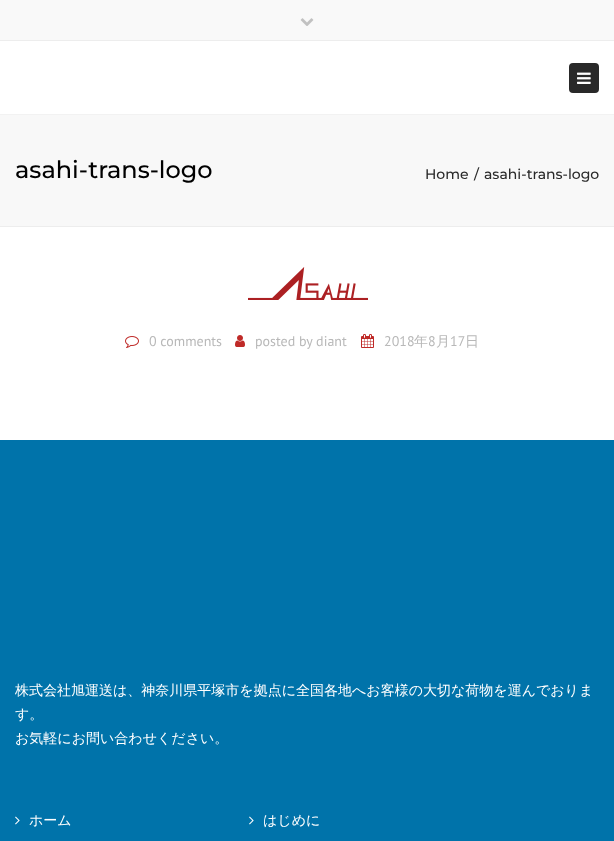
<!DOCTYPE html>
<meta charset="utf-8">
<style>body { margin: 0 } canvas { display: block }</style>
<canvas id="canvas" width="614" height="841"></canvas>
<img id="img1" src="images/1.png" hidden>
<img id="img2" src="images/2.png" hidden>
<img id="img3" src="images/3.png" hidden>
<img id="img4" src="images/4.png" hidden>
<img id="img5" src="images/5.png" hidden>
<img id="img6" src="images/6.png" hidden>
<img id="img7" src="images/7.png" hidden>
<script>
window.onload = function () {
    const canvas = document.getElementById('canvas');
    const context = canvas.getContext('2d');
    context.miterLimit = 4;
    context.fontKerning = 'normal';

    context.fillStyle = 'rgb(255, 255, 255)';
    context.fillRect(0, 0, 614, 841);
    context.fillStyle = 'rgb(249, 249, 249)';
    context.fillRect(0, 0, 614, 40);
    context.fillStyle = 'rgb(237, 237, 237)';
    context.fillRect(0, 40, 614, 1);
    context.drawImage(document.getElementById('img1'), 300, 18, 14, 8);
    context.fillStyle = 'rgb(242, 242, 242)';
    context.fillRect(0, 114, 614, 1);
    context.fillStyle = 'rgb(41, 41, 41)';
    context.beginPath();
    context.roundRect(569, 63, 30, 30, 4);
    context.fill();
    context.drawImage(document.getElementById('img2'), 577, 72, 14, 12);
    context.fillStyle = 'rgb(248, 248, 248)';
    context.fillRect(0, 115, 614, 111);
    context.fillStyle = 'rgb(237, 237, 237)';
    context.fillRect(0, 226, 614, 1);
    context.drawImage(document.getElementById('img3'), 248, 267, 120, 33);
    context.drawImage(document.getElementById('img4'), 125, 336, 14, 12);
    context.drawImage(document.getElementById('img5'), 235, 335, 10, 12);
    context.drawImage(document.getElementById('img6'), 361, 334, 13, 14);
    context.fillStyle = 'rgb(0, 115, 170)';
    context.fillRect(0, 440, 614, 401);
    context.drawImage(document.getElementById('img7'), 15, 816, 5, 9);
    context.drawImage(document.getElementById('img7'), 249, 816, 5, 9);
    context.font = '500 24px Montserrat';
    context.fillStyle = 'rgb(0, 0, 0)';
    context.fillText('asahi-trans-logo', 15, 178);
    context.font = '500 14px Montserrat';
    context.fillStyle = 'rgb(41, 41, 41)';
    context.fillText('Home', 425, 179);
    context.fillText('/', 474, 179);
    context.fillText('asahi-trans-logo', 484, 179);
    context.font = '14px PT Sans';
    context.fillStyle = 'rgb(184, 184, 184)';
    context.fillText('0 comments', 149, 346);
    context.fillText('posted by diant', 255, 346);
    context.fillText('2018', 384, 346);
    context.font = '500 14px WenQuanYi Zen Hei';
    context.fillText('年', 414, 346);
    context.font = '14px PT Sans';
    context.fillText('8', 428, 346);
    context.font = '500 14px WenQuanYi Zen Hei';
    context.fillText('月', 436, 346);
    context.font = '14px PT Sans';
    context.fillText('17', 450, 346);
    context.font = '500 14px WenQuanYi Zen Hei';
    context.fillText('日', 465, 346);
    context.fillStyle = 'rgb(255, 255, 255)';
    context.fillText('株式会社旭運送は、神奈川県平塚市を拠点に全国各地へお客様の大切な荷物を運んでおりま', 15, 695);
    context.fillText('す。', 15, 719);
    context.fillText('お気軽にお問い合わせください。', 15, 743);
    context.fillText('ホーム', 29, 825);
    context.fillText('はじめに', 263, 825);
};
</script>
